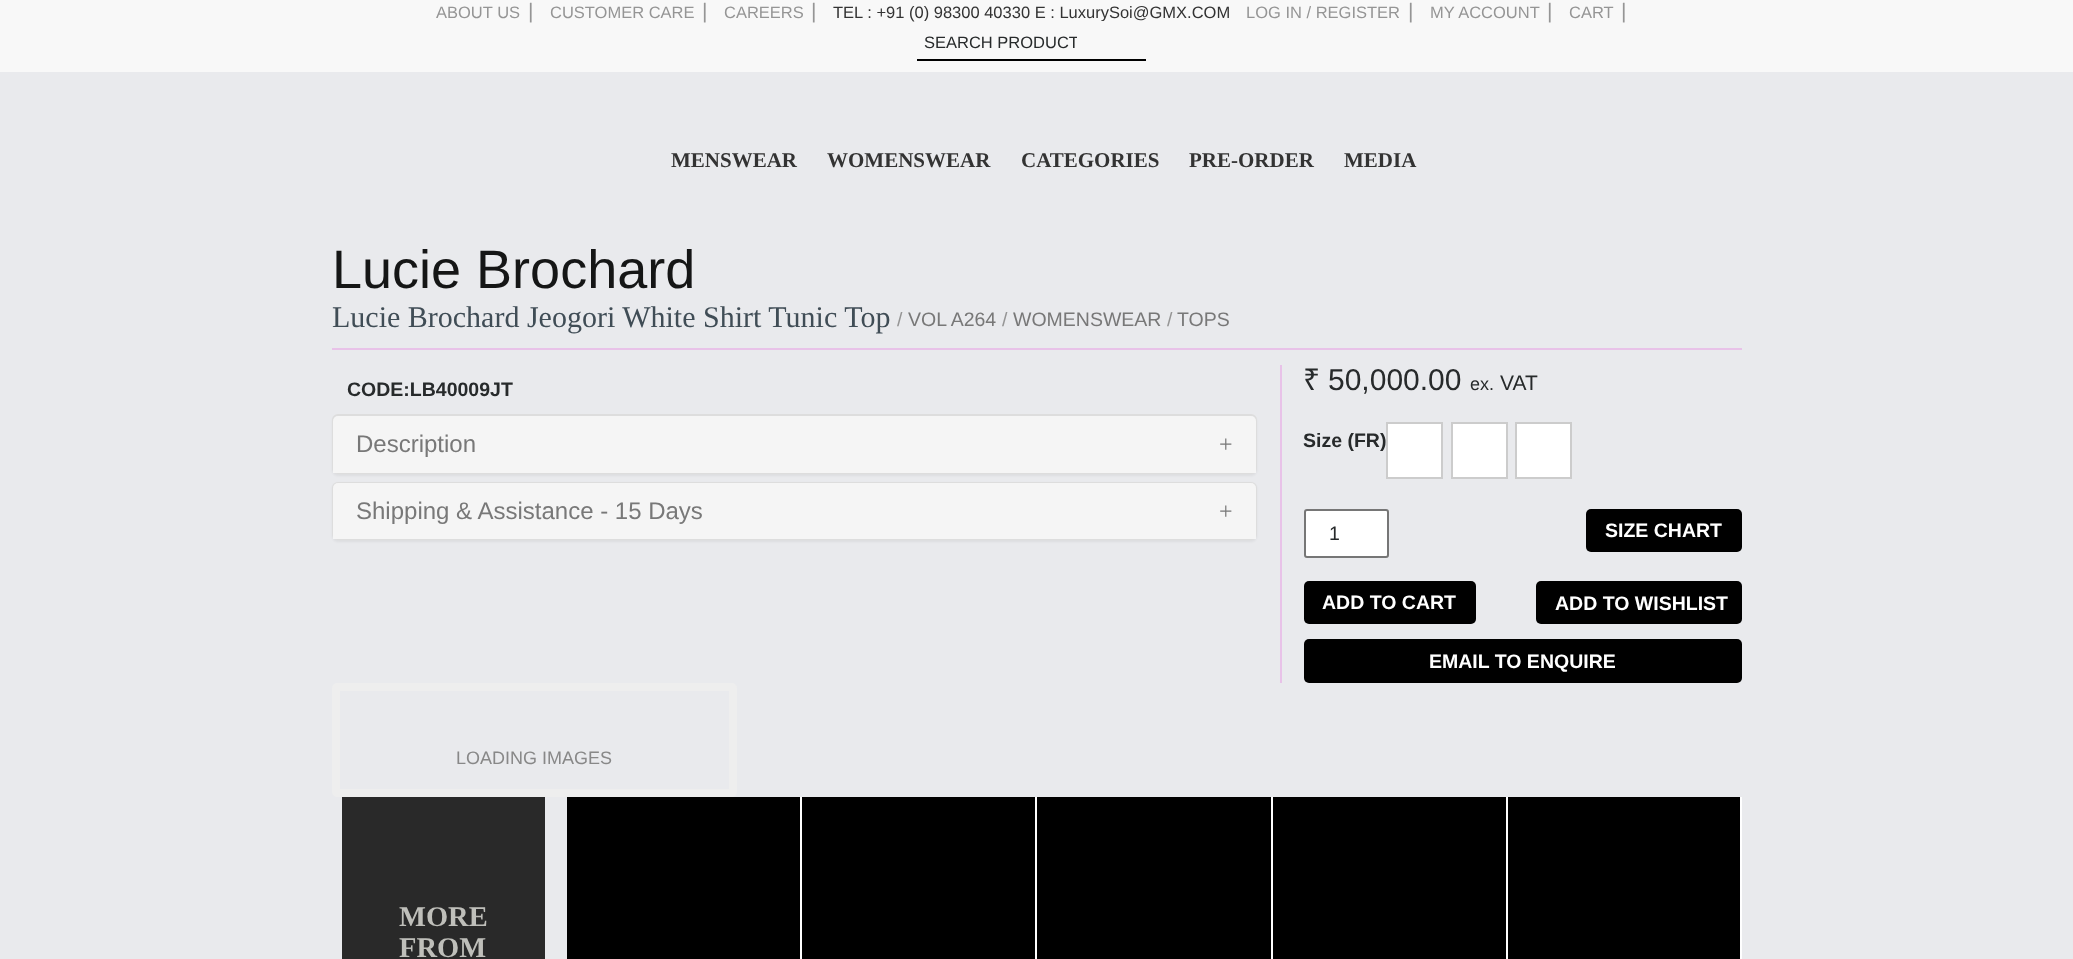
<!DOCTYPE html>
<meta charset="utf-8">
<style>body { margin: 0 } canvas { display: block }</style>
<canvas id="canvas" width="2073" height="959"></canvas>
<script>
window.onload = function () {
    const canvas = document.getElementById('canvas');
    const context = canvas.getContext('2d');
    context.miterLimit = 4;
    context.fontKerning = 'normal';

    context.fillStyle = 'rgb(233, 234, 237)';
    context.fillRect(0, 0, 2073, 959);
    context.fillStyle = 'rgb(248, 248, 248)';
    context.fillRect(0, 0, 2073, 72);
    context.fillStyle = 'rgb(0, 0, 0)';
    context.fillRect(917, 59, 229, 2);
    context.fillStyle = 'rgb(232, 194, 232)';
    context.fillRect(332, 348, 1410, 2);
    context.fillStyle = 'rgba(0, 0, 0, 0.05)';
    context.filter = 'blur(1px)';
    context.beginPath();
    context.roundRect(332, 416, 925, 60, 6);
    context.fill();
    context.filter = 'none';
    context.beginPath();
    context.roundRect(333, 415, 923, 58, 5);
    context.strokeStyle = 'rgb(221, 221, 221)';
    context.lineWidth = 2;
    context.stroke();
    context.fillStyle = 'rgb(245, 245, 245)';
    context.beginPath();
    context.roundRect(333, 416, 923, 57, [5, 5, 0, 0]);
    context.fill();
    context.fillStyle = 'rgba(0, 0, 0, 0.05)';
    context.filter = 'blur(1px)';
    context.beginPath();
    context.roundRect(332, 483, 925, 59, 6);
    context.fill();
    context.filter = 'none';
    context.beginPath();
    context.roundRect(333, 483, 923, 56, 5);
    context.stroke();
    context.fillStyle = 'rgb(245, 245, 245)';
    context.beginPath();
    context.roundRect(333, 483, 923, 56, [5, 5, 0, 0]);
    context.fill();
    context.fillStyle = 'rgb(232, 194, 232)';
    context.fillRect(1280, 365, 2, 318);
    context.fillStyle = 'rgb(255, 255, 255)';
    context.beginPath();
    context.rect(1387, 423, 55, 55);
    context.fill();
    context.strokeStyle = 'rgb(204, 204, 204)';
    context.stroke();
    context.beginPath();
    context.rect(1452, 423, 55, 55);
    context.fill();
    context.stroke();
    context.beginPath();
    context.rect(1516, 423, 55, 55);
    context.fill();
    context.stroke();
    context.beginPath();
    context.roundRect(1305, 510, 83, 47, 2);
    context.fill();
    context.strokeStyle = 'rgb(118, 118, 118)';
    context.stroke();
    context.fillStyle = 'rgb(0, 0, 0)';
    context.beginPath();
    context.roundRect(1586, 509, 156, 43, 5);
    context.fill();
    context.beginPath();
    context.roundRect(1304, 581, 172, 43, 5);
    context.fill();
    context.beginPath();
    context.roundRect(1536, 581, 206, 43, 5);
    context.fill();
    context.beginPath();
    context.roundRect(1304, 639, 438, 44, 5);
    context.fill();
    context.beginPath();
    context.roundRect(336, 687, 397, 106, 1);
    context.strokeStyle = 'rgb(238, 238, 238)';
    context.lineWidth = 8;
    context.stroke();
    context.fillStyle = 'rgb(41, 41, 41)';
    context.fillRect(342, 797, 203, 162);
    context.fillStyle = 'rgb(0, 0, 0)';
    context.fillRect(567, 797, 1173, 162);
    context.fillStyle = 'rgb(255, 255, 255)';
    context.fillRect(800, 797, 2, 162);
    context.fillRect(1035, 797, 2, 162);
    context.fillRect(1271, 797, 2, 162);
    context.fillRect(1506, 797, 2, 162);
    context.fillRect(1740, 797, 2, 162);
    context.font = '16.5px Liberation Sans';
    context.fillStyle = 'rgb(149, 149, 149)';
    context.fillText('ABOUT US', 436, 18);
    context.font = '21px Liberation Sans';
    context.fillText('|', 528, 18);
    context.font = '16.5px Liberation Sans';
    context.fillText('CUSTOMER CARE', 550, 18);
    context.font = '21px Liberation Sans';
    context.fillText('|', 702, 18);
    context.font = '16.5px Liberation Sans';
    context.fillText('CAREERS', 724, 18);
    context.font = '21px Liberation Sans';
    context.fillText('|', 811, 18);
    context.font = '16.5px Liberation Sans';
    context.fillStyle = 'rgb(51, 51, 51)';
    context.fillText('TEL : +91 (0) 98300 40330 E : LuxurySoi@GMX.COM', 833, 18);
    context.fillStyle = 'rgb(149, 149, 149)';
    context.fillText('LOG IN / REGISTER', 1246, 18);
    context.font = '21px Liberation Sans';
    context.fillText('|', 1408, 18);
    context.font = '16.5px Liberation Sans';
    context.fillText('MY ACCOUNT', 1430, 18);
    context.font = '21px Liberation Sans';
    context.fillText('|', 1547, 18);
    context.font = '16.5px Liberation Sans';
    context.fillText('CART', 1569, 18);
    context.font = '21px Liberation Sans';
    context.fillText('|', 1621, 18);
    context.fillStyle = 'rgb(248, 248, 248)';
    context.fillRect(923, 21, 181, 1);
    context.save();
    context.beginPath();
    context.rect(924, 33, 153, 18);
    context.clip();
    context.font = '16.5px Liberation Sans';
    context.fillStyle = 'rgb(39, 42, 43)';
    context.fillText('SEARCH PRODUCT', 924, 48);
    context.restore();
    context.font = 'bold 21px Liberation Serif';
    context.fillStyle = 'rgb(51, 51, 51)';
    context.fillText('MENSWEAR', 671, 167);
    context.fillText('WOMENSWEAR', 827, 167);
    context.fillText('CATEGORIES', 1021, 167);
    context.fillText('PRE-ORDER', 1189, 167);
    context.fillText('MEDIA', 1344, 167);
    context.font = '54px Liberation Sans';
    context.fillStyle = 'rgb(21, 22, 22)';
    context.fillText('Lucie Brochard', 332, 288);
    context.font = '30px Liberation Serif';
    context.fillStyle = 'rgb(64, 77, 86)';
    context.fillText('Lucie Brochard Jeogori White Shirt Tunic Top', 332, 327);
    context.font = '19.5px Liberation Sans';
    context.fillStyle = 'rgb(149, 149, 149)';
    context.fillText('/', 897, 326);
    context.fillStyle = 'rgb(120, 120, 120)';
    context.fillText('VOL A264', 908, 326);
    context.fillStyle = 'rgb(149, 149, 149)';
    context.fillText('/', 1002, 326);
    context.fillStyle = 'rgb(120, 120, 120)';
    context.fillText('WOMENSWEAR', 1013, 326);
    context.fillStyle = 'rgb(149, 149, 149)';
    context.fillText('/', 1167, 326);
    context.fillStyle = 'rgb(120, 120, 120)';
    context.fillText('TOPS', 1177, 326);
    context.font = 'bold 19.5px Liberation Sans';
    context.fillStyle = 'rgb(39, 42, 43)';
    context.fillText('CODE:LB40009JT', 347, 396);
    context.font = '24px Liberation Sans';
    context.fillStyle = 'rgb(120, 120, 120)';
    context.fillText('Description', 356, 452);
    context.font = '24px Liberation Serif';
    context.fillText('+', 1219, 452);
    context.font = '24px Liberation Sans';
    context.fillText('Shipping & Assistance - 15 Days', 356, 519);
    context.font = '24px Liberation Serif';
    context.fillText('+', 1219, 519);
    context.font = '30px Noto Sans';
    context.fillStyle = 'rgb(39, 42, 43)';
    context.fillText('₹', 1303, 390);
    context.font = '30px Liberation Sans';
    context.fillText('50,000.00', 1328, 390);
    context.font = '18px Liberation Sans';
    context.fillText('ex.', 1470, 390);
    context.font = '21px Liberation Sans';
    context.fillText('VAT', 1500, 390);
    context.font = 'bold 19.5px Liberation Sans';
    context.fillText('Size (FR)', 1303, 447);
    context.font = '19.5px Liberation Sans';
    context.fillText('1', 1329, 540);
    context.font = 'bold 19.5px Liberation Sans';
    context.fillStyle = 'rgb(255, 255, 255)';
    context.fillText('SIZE CHART', 1605, 537);
    context.fillText('ADD TO CART', 1322, 609);
    context.fillText('ADD TO WISHLIST', 1555, 610);
    context.fillText('EMAIL TO ENQUIRE', 1429, 668);
    context.font = '18px Liberation Sans';
    context.fillStyle = 'rgb(136, 136, 136)';
    context.fillText('LOADING IMAGES', 456, 764);
    context.font = 'bold 28.5px Liberation Serif';
    context.fillStyle = 'rgb(191, 191, 186)';
    context.fillText('MORE', 399, 926);
    context.fillText('FROM', 399, 957);
};
</script>
